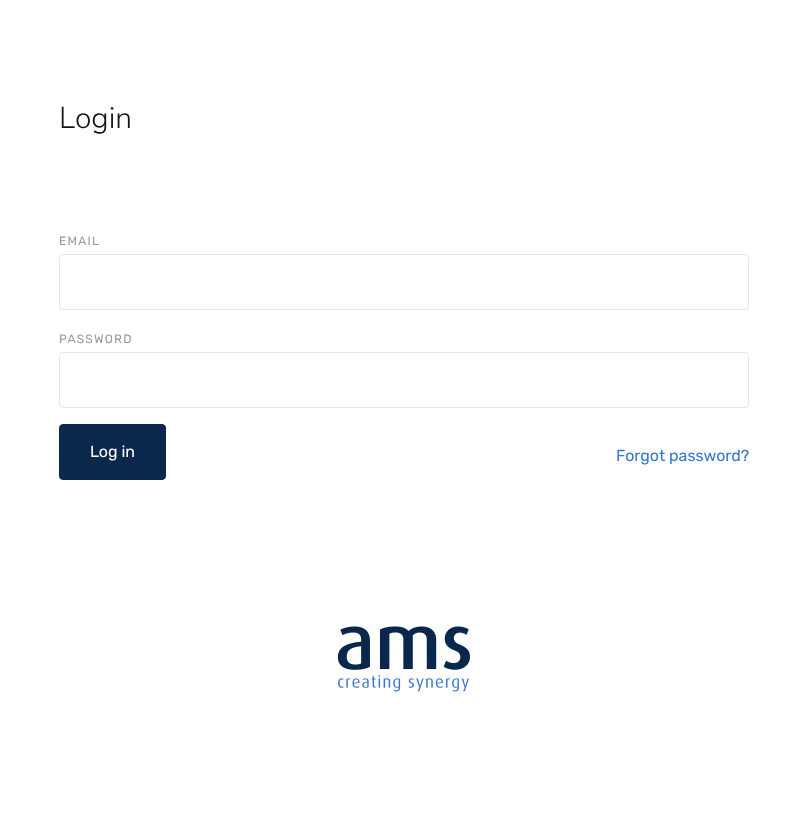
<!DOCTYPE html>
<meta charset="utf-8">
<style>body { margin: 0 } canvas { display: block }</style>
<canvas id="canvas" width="808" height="829"></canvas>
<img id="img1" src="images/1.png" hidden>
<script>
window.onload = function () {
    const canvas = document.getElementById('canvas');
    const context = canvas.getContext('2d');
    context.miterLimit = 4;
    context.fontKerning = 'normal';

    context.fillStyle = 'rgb(255, 255, 255)';
    context.fillRect(0, 0, 808, 829);
    context.beginPath();
    context.roundRect(59.5, 254.5, 689, 55, 3.5);
    context.strokeStyle = 'rgb(229, 229, 229)';
    context.stroke();
    context.beginPath();
    context.roundRect(59.5, 352.5, 689, 55, 3.5);
    context.stroke();
    context.fillStyle = 'rgb(10, 40, 76)';
    context.beginPath();
    context.roundRect(59.5, 424.5, 106, 55, 3.5);
    context.fill();
    context.strokeStyle = 'rgb(10, 40, 76)';
    context.stroke();
    context.drawImage(document.getElementById('img1'), 337, 626, 134, 66);
    context.font = '300 30px Nunito Sans';
    context.fillStyle = 'rgb(21, 21, 21)';
    context.fillText('Login', 59, 128);
    context.letterSpacing = '1.25px';
    context.font = '12px Rubik';
    context.fillStyle = 'rgb(153, 153, 153)';
    context.fillText('EMAIL', 59, 245);
    context.fillText('PASSWORD', 59, 343);
    context.letterSpacing = '0px';
    context.font = '16px Rubik';
    context.fillStyle = 'rgb(255, 255, 255)';
    context.fillText('Log in', 90, 457);
    context.fillStyle = 'rgb(56, 118, 208)';
    context.fillText('Forgot password?', 616, 461);
};
</script>
